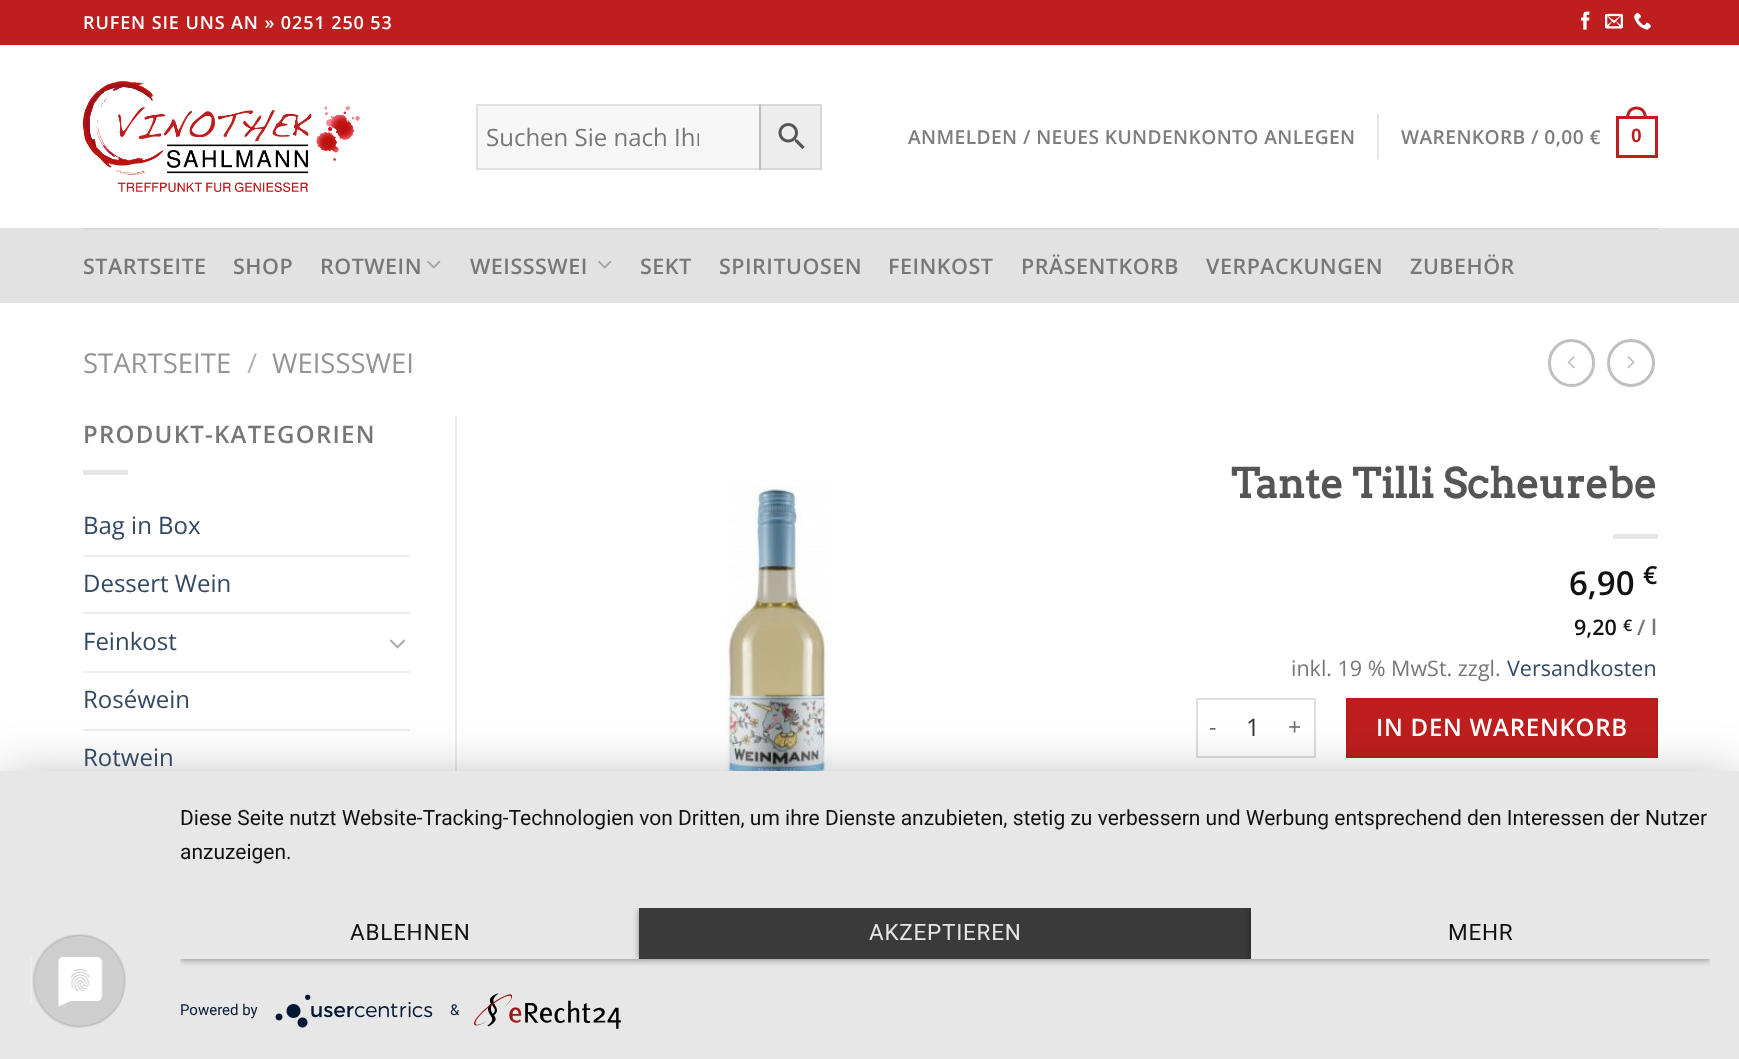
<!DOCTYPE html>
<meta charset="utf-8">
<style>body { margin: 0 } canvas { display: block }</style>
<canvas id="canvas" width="1739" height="1059"></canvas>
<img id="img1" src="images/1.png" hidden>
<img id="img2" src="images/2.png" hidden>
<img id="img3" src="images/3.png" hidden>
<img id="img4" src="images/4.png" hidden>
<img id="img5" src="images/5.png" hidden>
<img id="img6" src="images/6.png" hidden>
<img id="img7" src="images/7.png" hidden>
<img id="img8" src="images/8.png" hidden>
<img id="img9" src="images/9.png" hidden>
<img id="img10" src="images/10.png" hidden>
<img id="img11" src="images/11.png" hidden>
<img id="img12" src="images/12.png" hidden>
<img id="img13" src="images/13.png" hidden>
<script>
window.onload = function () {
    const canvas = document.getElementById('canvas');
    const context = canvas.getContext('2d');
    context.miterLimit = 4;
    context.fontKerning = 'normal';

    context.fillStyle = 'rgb(255, 255, 255)';
    context.fillRect(0, 0, 1739, 1059);
    context.fillStyle = 'rgb(190, 30, 30)';
    context.fillRect(0, 0, 1739, 45);
    context.drawImage(document.getElementById('img1'), 1581, 11, 9, 19);
    context.drawImage(document.getElementById('img2'), 1605, 13, 18, 16);
    context.drawImage(document.getElementById('img3'), 1634, 12, 17, 18);
    context.drawImage(document.getElementById('img4'), 82, 81, 278, 111);
    context.fillStyle = 'rgb(237, 237, 237)';
    context.beginPath();
    context.rect(760, 105, 61, 64);
    context.fill();
    context.strokeStyle = 'rgb(216, 216, 216)';
    context.lineWidth = 2;
    context.stroke();
    context.fillStyle = 'rgba(0, 0, 0, 0.03)';
    context.fillRect(476, 104, 285, 66);
    context.strokeStyle = 'rgba(0, 0, 0, 0.09)';
    context.strokeRect(477, 105, 283, 64);
    context.drawImage(document.getElementById('img5'), 778, 123, 27, 27);
    context.fillStyle = 'rgb(230, 230, 230)';
    context.fillRect(1377, 114, 2, 45);
    context.strokeStyle = 'rgb(190, 30, 30)';
    context.lineWidth = 3;
    context.strokeRect(1617.5, 117.5, 39, 39);
    context.fillStyle = 'rgb(190, 30, 30)';
    context.beginPath();
    context.moveTo(1636.5, 106.5);
    context.bezierCurveTo(1643.5, 106.5, 1647, 112, 1647, 118.5);
    context.lineTo(1626, 118.5);
    context.bezierCurveTo(1626, 112, 1629.5, 106.5, 1636.5, 106.5);
    context.closePath();
    context.moveTo(1636.5, 109.5);
    context.bezierCurveTo(1642, 109.5, 1644, 114, 1644, 118.5);
    context.lineTo(1629, 118.5);
    context.bezierCurveTo(1629, 114, 1631, 109.5, 1636.5, 109.5);
    context.closePath();
    context.fill('evenodd');
    context.fillStyle = 'rgb(226, 226, 226)';
    context.fillRect(0, 228, 1739, 75);
    context.fillStyle = 'rgb(215, 215, 215)';
    context.fillRect(83, 228, 1575, 2);
    context.drawImage(document.getElementById('img6'), 427, 260, 14, 9);
    context.drawImage(document.getElementById('img6'), 598, 260, 14, 9);
    context.beginPath();
    context.roundRect(1549.5, 340.5, 44, 45, 22);
    context.strokeStyle = 'rgb(192, 192, 192)';
    context.stroke();
    context.drawImage(document.getElementById('img7'), 1567, 356, 8, 13);
    context.beginPath();
    context.arc(1631, 363, 22.5, 0, 2 * Math.PI);
    context.stroke();
    context.drawImage(document.getElementById('img8'), 1627, 356, 8, 13);
    context.fillStyle = 'rgb(230, 230, 230)';
    context.fillRect(83, 470, 45, 5);
    context.fillStyle = 'rgb(236, 236, 236)';
    context.fillRect(83, 555, 327, 2);
    context.fillRect(83, 612, 327, 2);
    context.drawImage(document.getElementById('img9'), 389, 639, 17, 10);
    context.fillRect(83, 671, 327, 2);
    context.fillRect(83, 729, 327, 2);
    context.fillRect(455, 416, 2, 355);
    context.drawImage(document.getElementById('img10'), 726, 485, 106, 286);
    context.fillStyle = 'rgb(230, 230, 230)';
    context.fillRect(1613, 534, 45, 5);
    context.fillStyle = 'rgb(221, 221, 221)';
    context.fillRect(1196, 698, 120, 2);
    context.fillRect(1196, 756, 81, 2);
    context.fillRect(1196, 698, 2, 60);
    context.fillRect(1314, 698, 2, 60);
    context.fillRect(1277, 756, 39, 2);
    context.fillStyle = 'rgb(190, 30, 30)';
    context.beginPath();
    context.rect(1347, 699, 310, 58);
    context.fill();
    context.strokeStyle = 'rgb(181, 29, 29)';
    context.lineWidth = 2;
    context.stroke();
    context.fillStyle = 'rgba(0, 0, 0, 0.3)';
    context.filter = 'blur(27px)';
    context.beginPath();
    context.rect(0, 780, 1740, 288);
    context.fill();
    context.filter = 'none';
    context.fillStyle = 'rgb(231, 231, 231)';
    context.fillRect(0, 771, 1739, 288);
    context.fillStyle = 'rgb(236, 236, 236)';
    context.fillRect(30, 957, 2, 48);
    context.drawImage(document.getElementById('img11'), 32, 934, 94, 94);
    context.save();
    context.beginPath();
    context.rect(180, 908, 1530, 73);
    context.clip();
    context.fillStyle = 'rgba(0, 0, 0, 0.4)';
    context.filter = 'blur(3px)';
    context.beginPath();
    context.rect(180, 909, 459, 51);
    context.fill();
    context.filter = 'none';
    context.restore();
    context.fillStyle = 'rgb(231, 231, 231)';
    context.fillRect(180, 908, 459, 51);
    context.save();
    context.beginPath();
    context.rect(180, 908, 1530, 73);
    context.clip();
    context.fillStyle = 'rgba(0, 0, 0, 0.4)';
    context.filter = 'blur(3px)';
    context.beginPath();
    context.rect(639, 909, 612, 51);
    context.fill();
    context.filter = 'none';
    context.restore();
    context.fillStyle = 'rgb(58, 58, 58)';
    context.fillRect(639, 908, 612, 51);
    context.save();
    context.beginPath();
    context.rect(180, 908, 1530, 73);
    context.clip();
    context.fillStyle = 'rgba(0, 0, 0, 0.4)';
    context.filter = 'blur(3px)';
    context.beginPath();
    context.rect(1251, 909, 459, 51);
    context.fill();
    context.filter = 'none';
    context.restore();
    context.fillStyle = 'rgb(231, 231, 231)';
    context.fillRect(1251, 908, 459, 51);
    context.drawImage(document.getElementById('img12'), 275, 994, 158, 34);
    context.drawImage(document.getElementById('img13'), 474, 993, 147, 36);
    context.letterSpacing = '0.9px';
    context.font = '600 18px Open Sans';
    context.fillStyle = 'rgb(255, 255, 255)';
    context.fillText('RUFEN SIE UNS AN » 0251 250 53', 83, 29);
    context.save();
    context.beginPath();
    context.rect(486, 120, 213, 33);
    context.clip();
    context.letterSpacing = '0px';
    context.font = '24px Open Sans';
    context.fillStyle = 'rgb(119, 119, 119)';
    context.fillText('Suchen Sie nach Ihr', 486, 146);
    context.restore();
    context.letterSpacing = '0.4px';
    context.font = '600 19.2px Open Sans';
    context.fillStyle = 'rgb(125, 125, 125)';
    context.fillText('ANMELDEN / NEUES KUNDENKONTO ANLEGEN', 908, 144);
    context.fillText('WARENKORB / 0,00 €', 1401, 144);
    context.font = 'bold 19.2px Liberation Sans';
    context.fillStyle = 'rgb(190, 30, 30)';
    context.fillText('0', 1631, 142);
    context.letterSpacing = '0.5px';
    context.font = '600 21.5px Open Sans';
    context.fillStyle = 'rgb(119, 119, 119)';
    context.fillText('STARTSEITE', 83, 274);
    context.fillText('SHOP', 233, 274);
    context.fillText('ROTWEIN', 320, 274);
    context.fillText('WEISSSWEI', 470, 274);
    context.fillText('SEKT', 640, 274);
    context.fillText('SPIRITUOSEN', 719, 274);
    context.fillText('FEINKOST', 888, 274);
    context.fillText('PRÄSENTKORB', 1021, 274);
    context.fillText('VERPACKUNGEN', 1206, 274);
    context.fillText('ZUBEHÖR', 1410, 274);
    context.letterSpacing = '0px';
    context.font = '27.5px Open Sans';
    context.fillStyle = 'rgb(148, 148, 148)';
    context.fillText('STARTSEITE', 83, 373);
    context.fillStyle = 'rgb(178, 178, 178)';
    context.fillText('/', 247, 373);
    context.fillStyle = 'rgb(148, 148, 148)';
    context.fillText('WEISSSWEI', 272, 373);
    context.letterSpacing = '1.25px';
    context.font = '600 24px Open Sans';
    context.fillStyle = 'rgb(119, 119, 119)';
    context.fillText('PRODUKT-KATEGORIEN', 83, 443);
    context.letterSpacing = '0px';
    context.font = '24px Open Sans';
    context.fillStyle = 'rgb(51, 72, 98)';
    context.fillText('Bag in Box', 83, 534);
    context.fillText('Dessert Wein', 83, 592);
    context.fillText('Feinkost', 83, 650);
    context.fillText('Roséwein', 83, 708);
    context.fillText('Rotwein', 83, 766);
    context.font = 'bold 40.75px Arvo';
    context.fillStyle = 'rgb(85, 85, 85)';
    context.fillText('Tante Tilli Scheurebe', 1231, 498);
    context.font = '600 33px Open Sans';
    context.fillStyle = 'rgb(17, 17, 17)';
    context.fillText('6,90', 1569, 595);
    context.font = '600 25px Open Sans';
    context.fillText('€', 1643, 584);
    context.font = '600 21.5px Open Sans';
    context.fillText('9,20', 1574, 635);
    context.font = '600 16px Open Sans';
    context.fillText('€', 1623, 631);
    context.font = '600 21.5px Open Sans';
    context.fillStyle = 'rgb(119, 119, 119)';
    context.fillText('/ l', 1637, 635);
    context.font = '21.5px Open Sans';
    context.fillText('inkl. 19 % MwSt. zzgl.', 1291, 676);
    context.fillStyle = 'rgb(51, 72, 98)';
    context.fillText('Versandkosten', 1507, 676);
    context.letterSpacing = '1px';
    context.font = '23px Open Sans';
    context.fillStyle = 'rgb(102, 102, 102)';
    context.fillText('-', 1209, 735);
    context.letterSpacing = '0px';
    context.font = '24px Open Sans';
    context.fillStyle = 'rgb(51, 51, 51)';
    context.fillText('1', 1246, 736);
    context.letterSpacing = '1px';
    context.font = '23px Open Sans';
    context.fillStyle = 'rgb(102, 102, 102)';
    context.fillText('+', 1288, 735);
    context.letterSpacing = '0.75px';
    context.font = '600 24px Open Sans';
    context.fillStyle = 'rgb(255, 255, 255)';
    context.fillText('IN DEN WARENKORB', 1376, 736);
    context.letterSpacing = '0px';
    context.font = '21px Roboto';
    context.fillStyle = 'rgb(17, 17, 17)';
    context.fillText('Diese Seite nutzt Website-Tracking-Technologien von Dritten, um ihre Dienste anzubieten, stetig zu verbessern und Werbung entsprechend den Interessen der Nutzer', 180, 825);
    context.fillText('anzuzeigen.', 180, 859);
    context.letterSpacing = '0.75px';
    context.font = '22.5px Roboto';
    context.fillText('ABLEHNEN', 350, 940);
    context.fillStyle = 'rgb(230, 230, 230)';
    context.fillText('AKZEPTIEREN', 869, 940);
    context.fillStyle = 'rgb(17, 17, 17)';
    context.fillText('MEHR', 1448, 940);
    context.letterSpacing = '0px';
    context.font = '15px Roboto';
    context.fillStyle = 'rgb(2, 24, 54)';
    context.fillText('Powered by', 180, 1015);
    context.fillText('&', 450, 1015);
};
</script>
